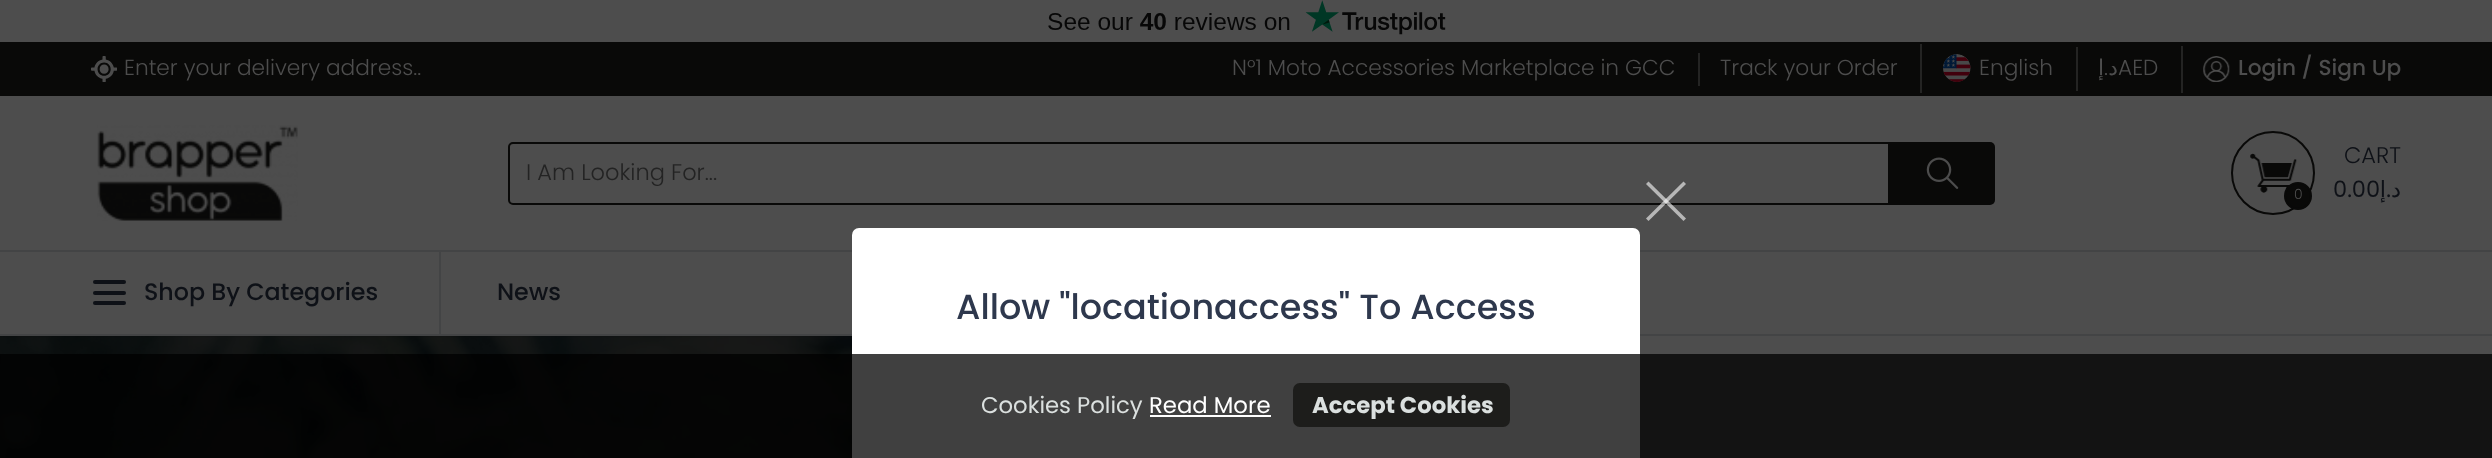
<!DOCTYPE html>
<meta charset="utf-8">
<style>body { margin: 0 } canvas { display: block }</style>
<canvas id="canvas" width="2492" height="458"></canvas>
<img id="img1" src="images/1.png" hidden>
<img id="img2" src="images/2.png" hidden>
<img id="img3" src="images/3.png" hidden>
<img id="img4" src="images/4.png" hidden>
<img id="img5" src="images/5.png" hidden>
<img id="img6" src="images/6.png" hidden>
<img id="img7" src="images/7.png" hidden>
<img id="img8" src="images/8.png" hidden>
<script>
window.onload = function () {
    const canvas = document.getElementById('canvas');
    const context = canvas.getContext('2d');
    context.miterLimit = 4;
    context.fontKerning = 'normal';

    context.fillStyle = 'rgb(77, 77, 77)';
    context.fillRect(0, 0, 2492, 458);
    context.drawImage(document.getElementById('img1'), 1048, 0, 398, 35);
    context.fillStyle = 'rgb(67, 68, 69)';
    context.fillRect(0, 334, 2492, 2);
    context.fillStyle = 'rgb(9, 9, 8)';
    context.fillRect(0, 42, 2492, 54);
    context.drawImage(document.getElementById('img2'), 91, 56, 26, 26);
    context.fillStyle = 'rgb(36, 36, 35)';
    context.fillRect(1698, 53, 2, 33);
    context.fillRect(1920, 44, 2, 49);
    context.drawImage(document.getElementById('img3'), 1943, 54, 28, 28);
    context.fillRect(2076, 47, 2, 44);
    context.fillRect(2181, 46, 2, 47);
    context.drawImage(document.getElementById('img4'), 2203, 56, 27, 26);
    context.drawImage(document.getElementById('img5'), 97, 125, 201, 96);
    context.beginPath();
    context.roundRect(509, 143, 1380, 61, [4, 0, 0, 4]);
    context.strokeStyle = 'rgb(9, 9, 8)';
    context.lineWidth = 2;
    context.stroke();
    context.fillStyle = 'rgb(9, 9, 8)';
    context.beginPath();
    context.roundRect(1890, 142, 105, 63, [0, 5, 5, 0]);
    context.fill();
    context.drawImage(document.getElementById('img6'), 1926, 157, 33, 32);
    context.beginPath();
    context.arc(2273, 173, 41, 0, 2 * Math.PI);
    context.stroke();
    context.drawImage(document.getElementById('img7'), 2250, 153, 47, 40);
    context.beginPath();
    context.arc(2298, 196, 13, 0, 2 * Math.PI);
    context.fill();
    context.stroke();
    context.fillStyle = 'rgb(67, 68, 69)';
    context.fillRect(0, 250, 2492, 2);
    context.fillRect(439, 252, 2, 82);
    context.fillStyle = 'rgb(14, 17, 23)';
    context.beginPath();
    context.roundRect(93, 280, 33, 4, 2);
    context.fill();
    context.beginPath();
    context.roundRect(93, 291, 33, 4, 2);
    context.fill();
    context.beginPath();
    context.roundRect(93, 301, 33, 4, 2);
    context.fill();
    context.drawImage(document.getElementById('img8'), 0, 336, 852, 122);
    context.fillStyle = 'rgb(255, 255, 255)';
    context.beginPath();
    context.roundRect(852, 228, 788, 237, 7);
    context.fill();
    context.fillStyle = 'rgba(0, 0, 0, 0.75)';
    context.fillRect(0, 354, 2492, 104);
    context.fillStyle = 'rgb(255, 255, 255)';
    context.fillRect(1150, 415, 121, 2);
    context.fillStyle = 'rgb(29, 29, 27)';
    context.beginPath();
    context.roundRect(1293, 383, 217, 44, 7);
    context.fill();
    context.fillStyle = 'rgba(255, 255, 255, 0.6)';
    context.beginPath();
    context.moveTo(1683.5, 181.5);
    context.lineTo(1686, 184);
    context.lineTo(1648.5, 221);
    context.lineTo(1646, 218.5);
    context.closePath();
    context.fill();
    context.beginPath();
    context.moveTo(1648.5, 181.5);
    context.lineTo(1686, 218.5);
    context.lineTo(1683.5, 221);
    context.lineTo(1646, 184);
    context.closePath();
    context.fill();
    context.font = '300 21.7px Poppins';
    context.fillStyle = 'rgb(77, 77, 77)';
    context.fillText('Enter your delivery address..', 124, 75);
    context.fillText('N°1 Moto Accessories Marketplace in GCC', 1232, 75);
    context.fillText('Track your Order', 1720, 75);
    context.fillText('English', 1979, 75);
    context.direction = 'rtl';
    context.font = '21.7px DejaVu Sans';
    context.fillText('إ', 2104, 75);
    context.font = '300 21.7px Poppins';
    context.fillText('.', 2108, 75);
    context.font = '21.7px DejaVu Sans';
    context.fillText('د', 2118, 75);
    context.direction = 'ltr';
    context.font = '300 21.7px Poppins';
    context.fillText('AED', 2118, 75);
    context.font = '500 21.7px Poppins';
    context.fillText('Login / Sign Up', 2238, 75);
    context.font = '300 22.5px Poppins';
    context.fillStyle = 'rgb(35, 35, 35)';
    context.fillText('I Am Looking For...', 526, 180);
    context.fillStyle = 'rgb(14, 17, 23)';
    context.fillText('CART', 2344, 163);
    context.font = '22.5px Poppins';
    context.fillText('0.00', 2333, 197);
    context.direction = 'rtl';
    context.font = '22.5px DejaVu Sans';
    context.fillText('إ', 2386, 197);
    context.font = '22.5px Poppins';
    context.fillText('.', 2391, 197);
    context.font = '22.5px DejaVu Sans';
    context.fillText('د', 2401, 197);
    context.direction = 'ltr';
    context.font = '300 14px Poppins';
    context.fillStyle = 'rgb(77, 77, 77)';
    context.fillText('0', 2294, 199);
    context.font = '500 23.75px Poppins';
    context.fillStyle = 'rgb(14, 17, 23)';
    context.fillText('Shop By Categories', 144, 300);
    context.fillText('News', 497, 300);
    context.font = '22.75px Poppins';
    context.fillStyle = 'rgb(219, 224, 223)';
    context.fillText('Cookies Policy', 981, 413);
    context.fillStyle = 'rgb(255, 255, 255)';
    context.fillText('Read More', 1149, 413);
    context.font = 'bold 22.75px Poppins';
    context.fillStyle = 'rgb(219, 224, 223)';
    context.fillText('Accept Cookies', 1312, 413);
    context.font = '500 35px Poppins';
    context.fillStyle = 'rgb(46, 56, 77)';
    context.fillText('Allow "locationaccess" To Access', 956, 319);
};
</script>
